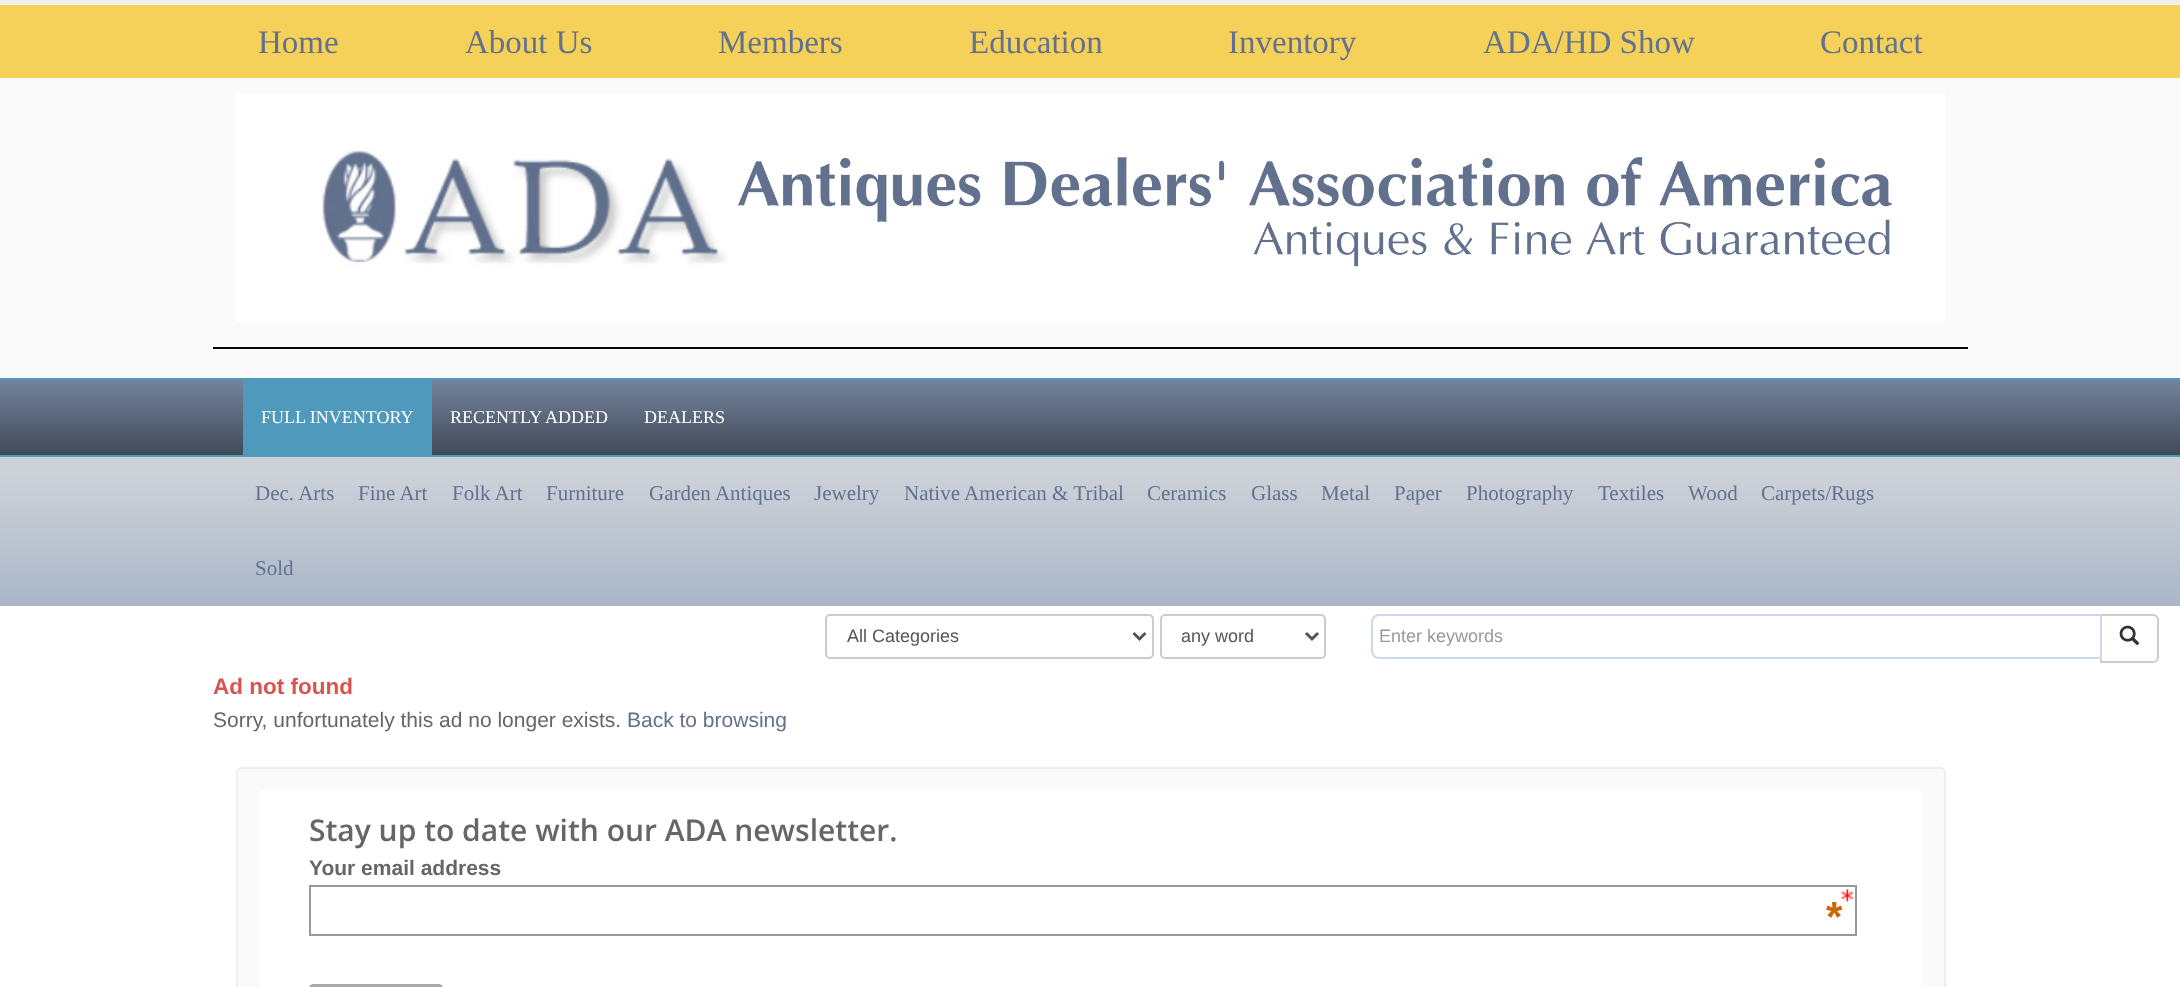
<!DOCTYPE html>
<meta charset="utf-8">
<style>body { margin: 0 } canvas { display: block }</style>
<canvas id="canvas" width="2180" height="987"></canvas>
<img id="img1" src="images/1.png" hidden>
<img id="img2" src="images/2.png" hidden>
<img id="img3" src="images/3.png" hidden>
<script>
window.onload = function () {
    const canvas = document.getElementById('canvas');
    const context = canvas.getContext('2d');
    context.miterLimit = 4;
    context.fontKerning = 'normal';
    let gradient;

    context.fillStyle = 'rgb(255, 255, 255)';
    context.fillRect(0, 0, 2180, 987);
    context.fillStyle = 'rgb(238, 238, 238)';
    context.fillRect(0, 0, 2180, 4);
    context.fillStyle = 'rgb(250, 250, 250)';
    context.fillRect(0, 78, 2180, 300);
    context.fillStyle = 'rgb(244, 244, 244)';
    context.fillRect(0, 4, 2180, 1);
    context.fillStyle = 'rgb(245, 209, 89)';
    context.fillRect(0, 5, 2180, 73);
    context.fillStyle = 'rgb(5, 5, 5)';
    context.fillRect(213, 347, 1755, 2);
    context.drawImage(document.getElementById('img1'), 236, 93, 1709, 228);
    gradient = context.createLinearGradient(1091, 379, 1091, 455);
    gradient.addColorStop(0, 'rgb(116, 132, 158)');
    gradient.addColorStop(1, 'rgb(65, 73, 87)');
    context.fillStyle = gradient;
    context.fillRect(0, 380, 2180, 75);
    context.fillStyle = 'rgb(79, 153, 188)';
    context.fillRect(0, 378, 2180, 2);
    context.fillRect(0, 455, 2180, 2);
    context.fillRect(243, 380, 189, 75);
    gradient = context.createLinearGradient(1091, 456, 1091, 606);
    gradient.addColorStop(0.12, 'rgb(205, 210, 217)');
    gradient.addColorStop(1, 'rgb(170, 182, 200)');
    context.fillStyle = gradient;
    context.fillRect(0, 457, 2180, 149);
    context.fillStyle = 'rgb(236, 236, 236)';
    context.beginPath();
    context.moveTo(830, 616);
    context.lineTo(1149, 616);
    context.bezierCurveTo(1151, 616, 1152, 618, 1152, 620);
    context.lineTo(1152, 618);
    context.bezierCurveTo(1152, 616, 1151, 615, 1149, 615);
    context.lineTo(830, 615);
    context.bezierCurveTo(829, 615, 827, 616, 827, 617);
    context.closePath();
    context.fill();
    context.beginPath();
    context.roundRect(826, 615, 327, 43, 4);
    context.strokeStyle = 'rgb(204, 204, 204)';
    context.lineWidth = 2;
    context.stroke();
    context.beginPath();
    context.moveTo(1133.5, 633);
    context.lineTo(1139.5, 639);
    context.lineTo(1145.5, 633);
    context.strokeStyle = 'rgb(85, 85, 85)';
    context.lineWidth = 3;
    context.stroke();
    context.beginPath();
    context.moveTo(1164, 616);
    context.lineTo(1296, 616);
    context.bezierCurveTo(1326, 616, 1324, 609, 1324, 632);
    context.lineTo(1324, 656);
    context.bezierCurveTo(1325, 656, 1325, 655, 1325, 654);
    context.lineTo(1325, 618);
    context.bezierCurveTo(1325, 616, 1324, 615, 1322, 615);
    context.lineTo(1164, 615);
    context.bezierCurveTo(1162, 615, 1161, 616, 1161, 618);
    context.lineTo(1161, 620);
    context.bezierCurveTo(1161, 618, 1162, 616, 1164, 616);
    context.closePath();
    context.fill();
    context.beginPath();
    context.roundRect(1161, 615, 164, 43, 4);
    context.strokeStyle = 'rgb(204, 204, 204)';
    context.lineWidth = 2;
    context.stroke();
    context.beginPath();
    context.moveTo(1306, 633);
    context.lineTo(1312, 639);
    context.lineTo(1318, 633);
    context.strokeStyle = 'rgb(85, 85, 85)';
    context.lineWidth = 3;
    context.stroke();
    context.beginPath();
    context.roundRect(2101, 615, 57, 47, [0, 5, 5, 0]);
    context.strokeStyle = 'rgb(204, 204, 204)';
    context.lineWidth = 2;
    context.stroke();
    context.fillStyle = 'rgb(255, 255, 255)';
    context.beginPath();
    context.roundRect(1372, 615, 729, 43, [7, 0, 0, 7]);
    context.fill();
    context.strokeStyle = 'rgb(205, 217, 233)';
    context.stroke();
    context.drawImage(document.getElementById('img2'), 2119, 625, 21, 21);
    context.fillStyle = 'rgb(250, 250, 250)';
    context.beginPath();
    context.roundRect(237, 768, 1708, 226, 5);
    context.fill();
    context.strokeStyle = 'rgb(238, 238, 238)';
    context.stroke();
    context.fillStyle = 'rgb(255, 255, 255)';
    context.fillRect(260, 791, 1662, 196);
    context.drawImage(document.getElementById('img3'), 1840, 888, 15, 14);
    context.strokeStyle = 'rgb(153, 153, 153)';
    context.strokeRect(310, 886, 1546, 49);
    context.fillStyle = 'rgb(170, 170, 170)';
    context.beginPath();
    context.roundRect(309, 984, 134, 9, 6);
    context.fill();
    context.font = '33px Liberation Serif';
    context.fillStyle = 'rgb(98, 113, 142)';
    context.fillText('Home', 258, 53);
    context.fillText('About Us', 465, 53);
    context.fillText('Members', 718, 53);
    context.fillText('Education', 969, 53);
    context.fillText('Inventory', 1228, 53);
    context.fillText('ADA/HD Show', 1483, 53);
    context.fillText('Contact', 1820, 53);
    context.font = '18px Liberation Serif';
    context.fillStyle = 'rgb(255, 255, 255)';
    context.fillText('FULL INVENTORY', 261, 423);
    context.fillText('RECENTLY ADDED', 450, 423);
    context.fillText('DEALERS', 644, 423);
    context.font = '21px Liberation Serif';
    context.fillStyle = 'rgb(98, 113, 142)';
    context.fillText('Dec. Arts', 255, 500);
    context.fillText('Fine Art', 358, 500);
    context.fillText('Folk Art', 452, 500);
    context.fillText('Furniture', 546, 500);
    context.fillText('Garden Antiques', 649, 500);
    context.fillText('Jewelry', 814, 500);
    context.fillText('Native American & Tribal', 904, 500);
    context.fillText('Ceramics', 1147, 500);
    context.fillText('Glass', 1251, 500);
    context.fillText('Metal', 1321, 500);
    context.fillText('Paper', 1394, 500);
    context.fillText('Photography', 1466, 500);
    context.fillText('Textiles', 1598, 500);
    context.fillText('Wood', 1688, 500);
    context.fillText('Carpets/Rugs', 1761, 500);
    context.fillText('Sold', 255, 575);
    context.font = '18px Liberation Sans';
    context.fillStyle = 'rgb(85, 85, 85)';
    context.fillText('All Categories', 847, 642);
    context.fillText('any word', 1181, 642);
    context.fillStyle = 'rgb(153, 153, 153)';
    context.fillText('Enter keywords', 1379, 642);
    context.font = 'bold 22.5px Liberation Sans';
    context.fillStyle = 'rgb(217, 83, 79)';
    context.fillText('Ad not found', 213, 694);
    context.font = '21px Liberation Sans';
    context.fillStyle = 'rgb(102, 102, 102)';
    context.fillText('Sorry, unfortunately this ad no longer exists.', 213, 727);
    context.fillStyle = 'rgb(98, 113, 142)';
    context.fillText('Back to browsing', 627, 727);
    context.font = '600 30px Open Sans';
    context.fillStyle = 'rgb(102, 102, 102)';
    context.fillText('Stay up to date with our ADA newsletter.', 309, 841);
    context.font = 'bold 21px Liberation Sans';
    context.fillText('Your email address', 309, 875);
    context.font = 'bold 42px Liberation Sans';
    context.fillStyle = 'rgb(204, 102, 0)';
    context.fillText('*', 1826, 931);
};
</script>
